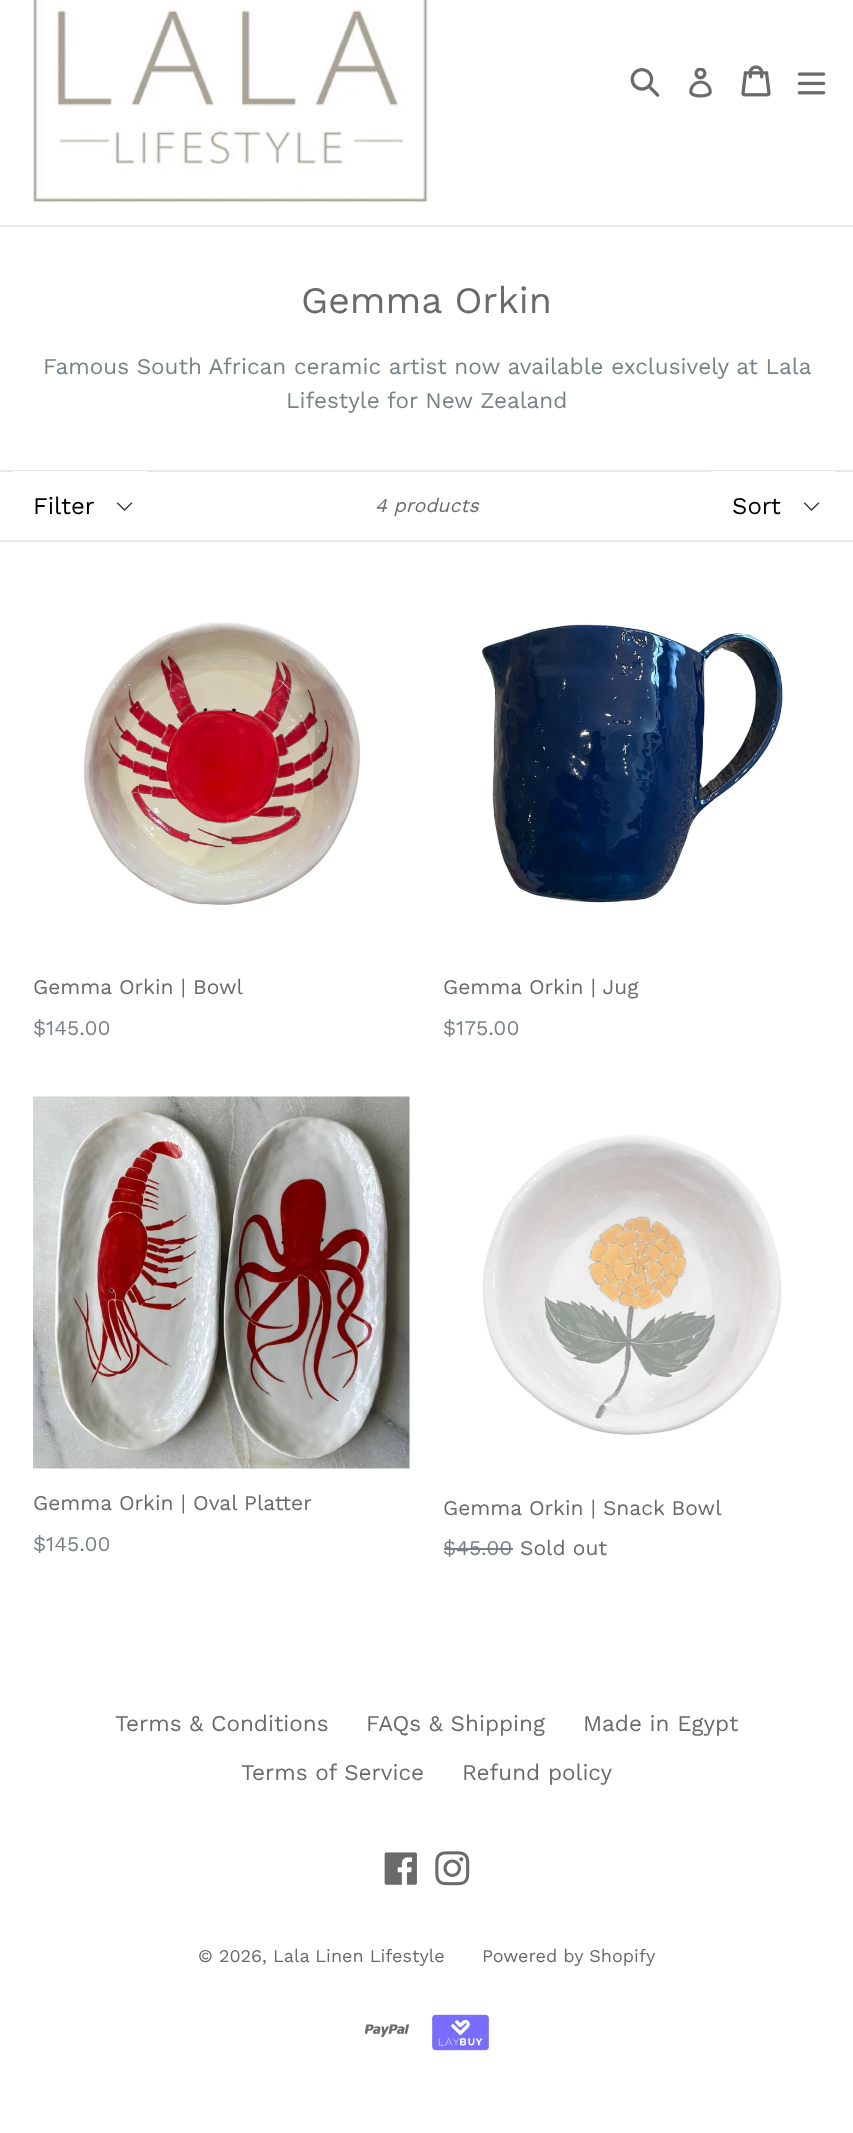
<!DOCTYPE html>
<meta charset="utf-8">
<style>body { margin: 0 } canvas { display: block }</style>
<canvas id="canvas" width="853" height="2133"></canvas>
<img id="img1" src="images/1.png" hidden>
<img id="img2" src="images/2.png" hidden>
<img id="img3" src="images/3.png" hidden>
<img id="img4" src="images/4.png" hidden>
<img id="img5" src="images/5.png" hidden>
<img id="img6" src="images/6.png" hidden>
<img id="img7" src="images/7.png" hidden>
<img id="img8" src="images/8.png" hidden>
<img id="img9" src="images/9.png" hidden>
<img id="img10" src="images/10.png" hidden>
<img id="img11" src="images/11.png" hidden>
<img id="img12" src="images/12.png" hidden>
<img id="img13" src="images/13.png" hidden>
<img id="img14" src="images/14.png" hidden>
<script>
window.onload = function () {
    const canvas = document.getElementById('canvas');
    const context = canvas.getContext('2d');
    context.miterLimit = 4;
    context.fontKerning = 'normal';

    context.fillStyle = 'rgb(255, 255, 255)';
    context.fillRect(0, 0, 853, 2133);
    context.fillStyle = 'rgb(232, 233, 235)';
    context.fillRect(0, 225, 853, 2);
    context.drawImage(document.getElementById('img1'), 33, 0, 395, 203);
    context.drawImage(document.getElementById('img2'), 630, 68, 30, 29);
    context.drawImage(document.getElementById('img3'), 689, 68, 23, 30);
    context.drawImage(document.getElementById('img4'), 741, 65, 30, 32);
    context.drawImage(document.getElementById('img5'), 797, 72, 29, 23);
    context.fillRect(0, 470, 853, 2);
    context.fillRect(0, 540, 853, 2);
    context.fillStyle = 'rgb(255, 255, 255)';
    context.beginPath();
    context.roundRect(11, 471, 138, 69, 3);
    context.fill();
    context.drawImage(document.getElementById('img6'), 116, 502, 17, 9);
    context.beginPath();
    context.roundRect(710, 471, 126, 69, 3);
    context.fill();
    context.drawImage(document.getElementById('img6'), 803, 502, 17, 9);
    context.drawImage(document.getElementById('img7'), 84, 622, 277, 283);
    context.drawImage(document.getElementById('img8'), 481, 623, 303, 280);
    context.drawImage(document.getElementById('img9'), 33, 1096, 377, 373);
    context.drawImage(document.getElementById('img10'), 482, 1134, 300, 301);
    context.fillStyle = 'rgb(120, 129, 136)';
    context.fillRect(444, 1548, 69, 2);
    context.drawImage(document.getElementById('img11'), 384, 1852, 33, 33);
    context.drawImage(document.getElementById('img12'), 435, 1851, 35, 35);
    context.drawImage(document.getElementById('img13'), 365, 2024, 45, 13);
    context.drawImage(document.getElementById('img14'), 432, 2014, 57, 37);
    context.font = '37.5px Work Sans';
    context.fillStyle = 'rgb(104, 106, 107)';
    context.fillText('Gemma Orkin', 301, 313);
    context.font = '22.5px Work Sans';
    context.fillStyle = 'rgb(120, 129, 136)';
    context.fillText('Famous South African ceramic artist now available exclusively at Lala', 43, 374);
    context.fillText('Lifestyle for New Zealand', 286, 408);
    context.font = '24px Work Sans';
    context.fillStyle = 'rgb(0, 0, 0)';
    context.fillText('Filter', 33, 514);
    context.font = 'italic 19.5px Work Sans';
    context.fillStyle = 'rgb(104, 106, 107)';
    context.fillText('4 products', 375, 512);
    context.font = '24px Work Sans';
    context.fillStyle = 'rgb(0, 0, 0)';
    context.fillText('Sort', 732, 514);
    context.font = '21px Work Sans';
    context.fillStyle = 'rgb(104, 106, 107)';
    context.fillText('Gemma Orkin | Bowl', 33, 994);
    context.fillStyle = 'rgb(120, 129, 136)';
    context.fillText('$145.00', 33, 1035);
    context.fillStyle = 'rgb(104, 106, 107)';
    context.fillText('Gemma Orkin | Jug', 443, 994);
    context.fillStyle = 'rgb(120, 129, 136)';
    context.fillText('$175.00', 443, 1035);
    context.fillStyle = 'rgb(104, 106, 107)';
    context.fillText('Gemma Orkin | Oval Platter', 33, 1510);
    context.fillStyle = 'rgb(120, 129, 136)';
    context.fillText('$145.00', 33, 1551);
    context.fillStyle = 'rgb(104, 106, 107)';
    context.fillText('Gemma Orkin | Snack Bowl', 443, 1515);
    context.fillStyle = 'rgb(120, 129, 136)';
    context.fillText('$45.00', 443, 1555);
    context.fillStyle = 'rgb(104, 106, 107)';
    context.fillText('Sold out', 520, 1555);
    context.font = '22.5px Work Sans';
    context.fillText('Terms & Conditions', 115, 1731);
    context.fillText('FAQs & Shipping', 366, 1731);
    context.fillText('Made in Egypt', 583, 1731);
    context.fillText('Terms of Service', 241, 1780);
    context.fillText('Refund policy', 462, 1780);
    context.font = '18px Work Sans';
    context.fillText('© 2026, Lala Linen Lifestyle', 198, 1962);
    context.fillText('Powered by Shopify', 482, 1962);
};
</script>
